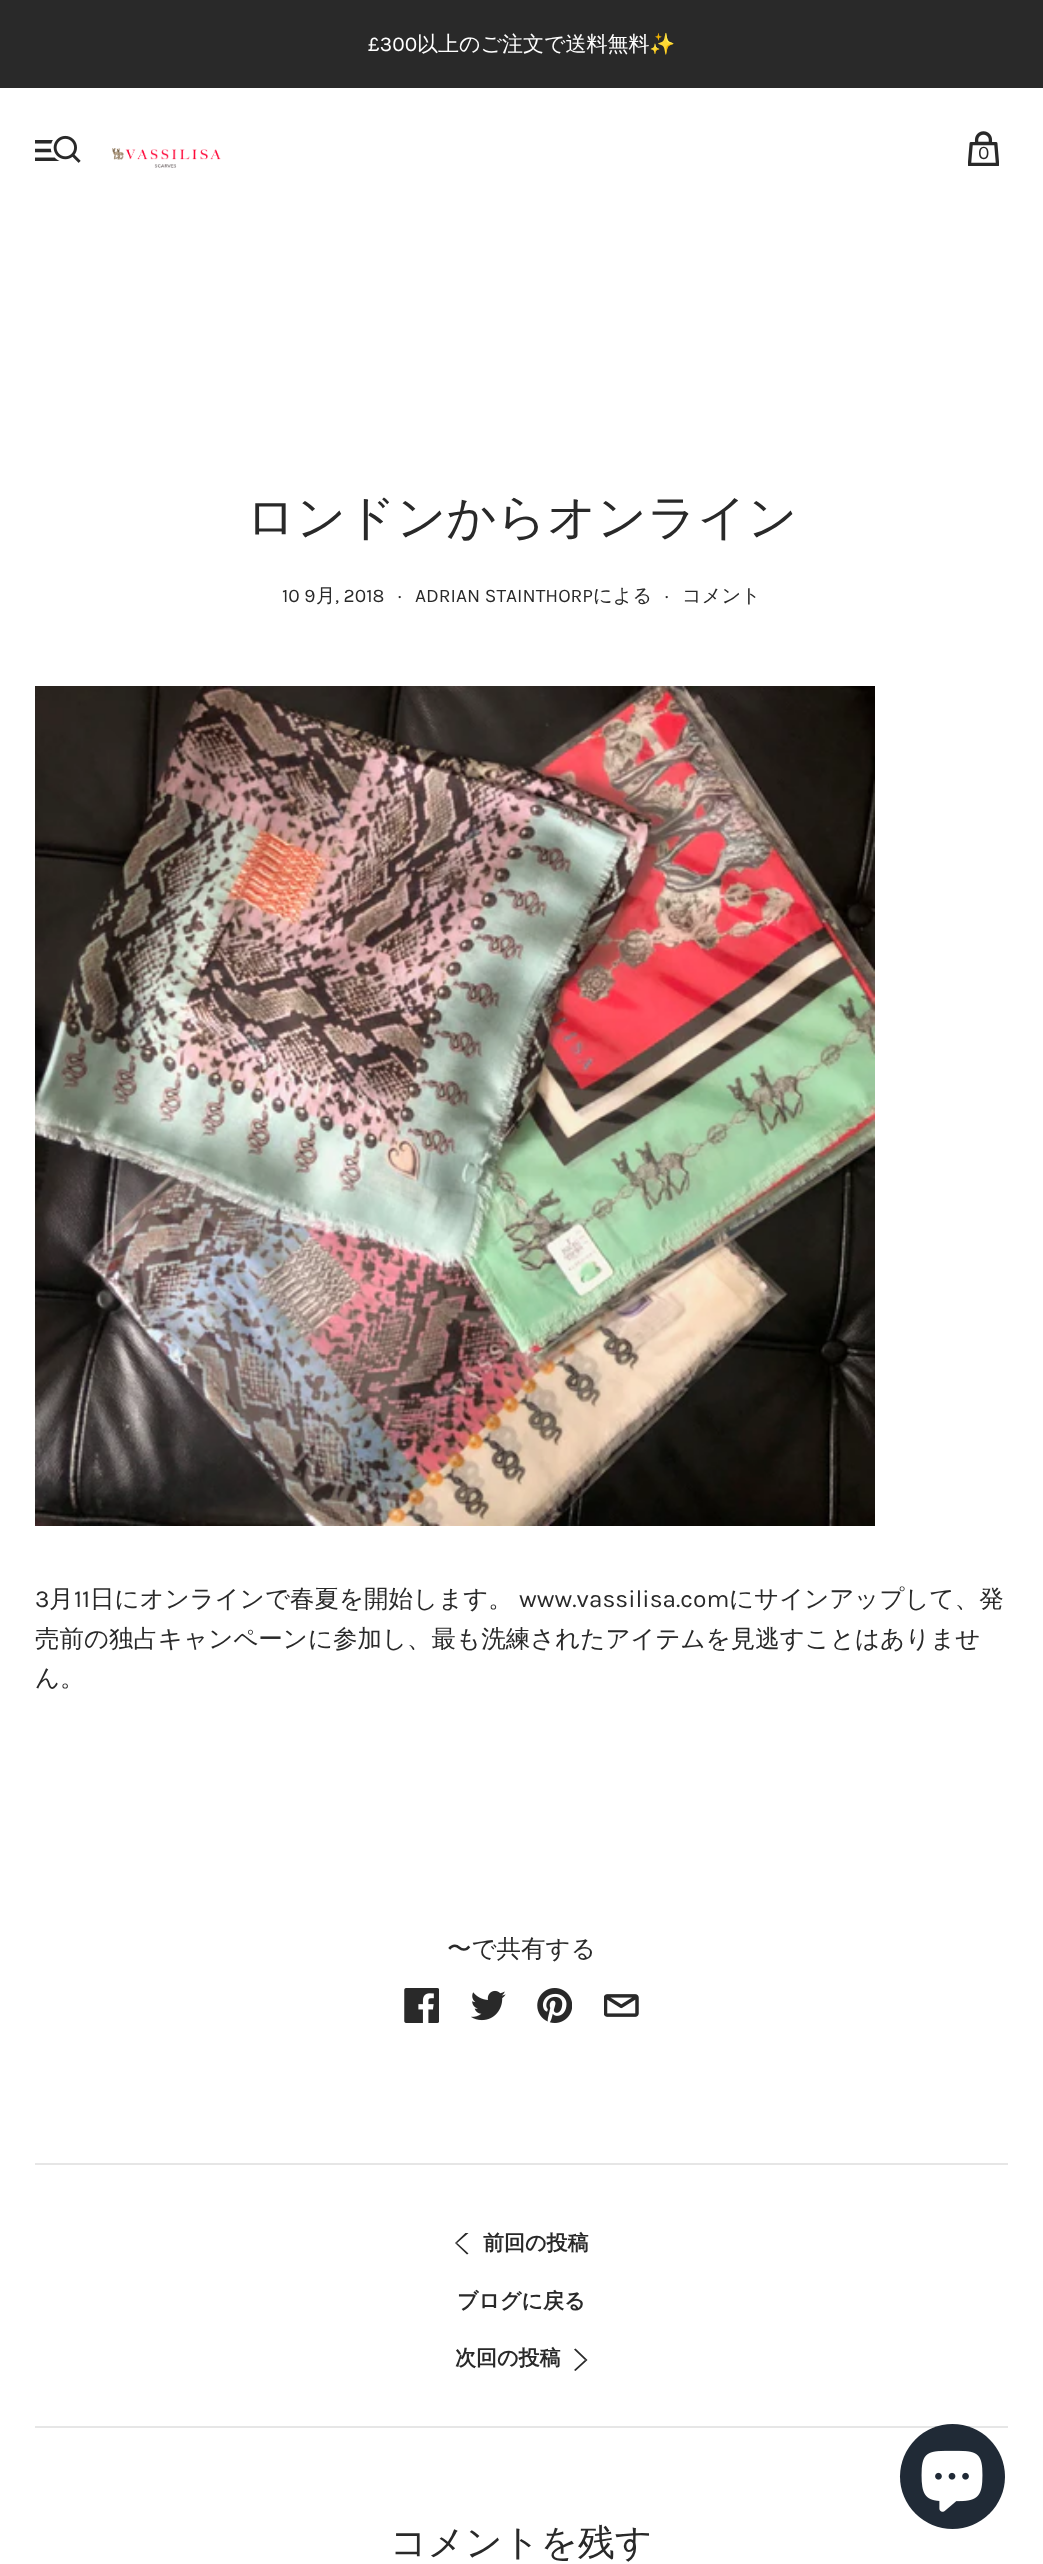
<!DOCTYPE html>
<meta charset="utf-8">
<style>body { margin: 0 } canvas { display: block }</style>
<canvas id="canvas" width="1043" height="2564"></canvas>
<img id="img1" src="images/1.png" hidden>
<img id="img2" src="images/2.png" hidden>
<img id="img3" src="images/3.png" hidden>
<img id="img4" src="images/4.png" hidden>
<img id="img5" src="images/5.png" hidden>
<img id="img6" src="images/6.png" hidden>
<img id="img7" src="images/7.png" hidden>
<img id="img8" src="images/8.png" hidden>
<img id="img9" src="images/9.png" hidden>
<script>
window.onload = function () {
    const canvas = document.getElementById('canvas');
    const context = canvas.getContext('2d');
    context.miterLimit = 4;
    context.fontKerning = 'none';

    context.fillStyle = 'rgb(255, 255, 255)';
    context.fillRect(0, 0, 1043, 2564);
    context.fillStyle = 'rgb(41, 41, 41)';
    context.fillRect(0, 0, 1043, 88);
    context.drawImage(document.getElementById('img1'), 35, 135, 46, 28);
    context.drawImage(document.getElementById('img2'), 112, 148, 109, 20);
    context.drawImage(document.getElementById('img3'), 968, 131, 31, 35);
    context.drawImage(document.getElementById('img4'), 35, 686, 840, 840);
    context.drawImage(document.getElementById('img5'), 404, 1988, 35, 35);
    context.drawImage(document.getElementById('img6'), 471, 1990, 35, 31);
    context.drawImage(document.getElementById('img7'), 537, 1988, 35, 35);
    context.drawImage(document.getElementById('img8'), 604, 1994, 35, 23);
    context.fillStyle = 'rgb(230, 230, 230)';
    context.fillRect(35, 2163, 973, 2);
    context.fillRect(35, 2426, 973, 2);
    context.save();
    context.beginPath();
    context.rect(455, 2233, 14, 23);
    context.clip();
    context.fillStyle = 'rgb(41, 41, 41)';
    context.beginPath();
    context.moveTo(456.5, 2242.5);
    context.lineTo(456.5, 2243.5);
    context.lineTo(468.5, 2233);
    context.lineTo(467, 2231.5);
    context.lineTo(455, 2243);
    context.lineTo(467, 2254.5);
    context.lineTo(468.5, 2253.5);
    context.fill('evenodd');
    context.restore();
    context.fillStyle = 'rgb(41, 41, 41)';
    context.beginPath();
    context.moveTo(585.5, 2360.5);
    context.lineTo(585.5, 2359.5);
    context.lineTo(574, 2370);
    context.lineTo(575.5, 2371);
    context.lineTo(587.5, 2360);
    context.lineTo(575.5, 2348.5);
    context.lineTo(574, 2349.5);
    context.fill('evenodd');
    context.fillStyle = 'rgb(32, 42, 54)';
    context.beginPath();
    context.arc(952.5, 2476.5, 52.5, 0, 2 * Math.PI);
    context.fill();
    context.drawImage(document.getElementById('img9'), 921, 2450, 62, 62);
    context.font = '21px Karla';
    context.fillStyle = 'rgb(255, 255, 255)';
    context.fillText('£300', 368, 51);
    context.font = '500 21px WenQuanYi Zen Hei';
    context.fillText('以上のご注文で送料無料', 417, 51);
    context.font = '21px Noto Color Emoji';
    context.fillText('✨', 649, 51);
    context.font = '19.25px Karla';
    context.fillStyle = 'rgb(41, 41, 41)';
    context.fillText('0', 978, 159);
    context.font = '500 49px WenQuanYi Zen Hei';
    context.fillText('ロンドンからオンライン', 246, 534);
    context.font = '19.25px Karla';
    context.fillText('10 9', 282, 602);
    context.font = '500 19.25px WenQuanYi Zen Hei';
    context.fillText('月', 316, 602);
    context.font = '19.25px Karla';
    context.fillText(', 2018', 335, 602);
    context.fillText('·', 398, 602);
    context.fillText('ADRIAN STAINTHORP', 415, 602);
    context.font = '500 19.25px WenQuanYi Zen Hei';
    context.fillText('による', 593, 602);
    context.font = '19.25px Karla';
    context.fillText('·', 665, 602);
    context.font = '500 19.25px WenQuanYi Zen Hei';
    context.fillText('コメント', 682, 602);
    context.font = '24.5px Karla';
    context.fillText('3', 35, 1607);
    context.font = '500 24.5px WenQuanYi Zen Hei';
    context.fillText('月', 49, 1607);
    context.font = '24.5px Karla';
    context.fillText('11', 74, 1607);
    context.font = '500 24.5px WenQuanYi Zen Hei';
    context.fillText('日にオンラインで春夏を開始します。', 90, 1607);
    context.font = '24.5px Karla';
    context.fillText('www.vassilisa.com', 519, 1607);
    context.font = '500 24.5px WenQuanYi Zen Hei';
    context.fillText('にサインアップして、発', 729, 1607);
    context.fillText('売前の独占キャンペーンに参加し、最も洗練されたアイテムを見逃すことはありませ', 35, 1647);
    context.fillText('ん。', 35, 1686);
    context.fillText('〜で共有する', 447, 1957);
    context.font = 'bold 21px WenQuanYi Zen Hei';
    context.fillText('前回の投稿', 483, 2250);
    context.fillText('ブログに戻る', 457, 2308);
    context.fillText('次回の投稿', 455, 2365);
    context.font = '500 36.75px WenQuanYi Zen Hei';
    context.fillText('コメントを残す', 390, 2555);
};
</script>
